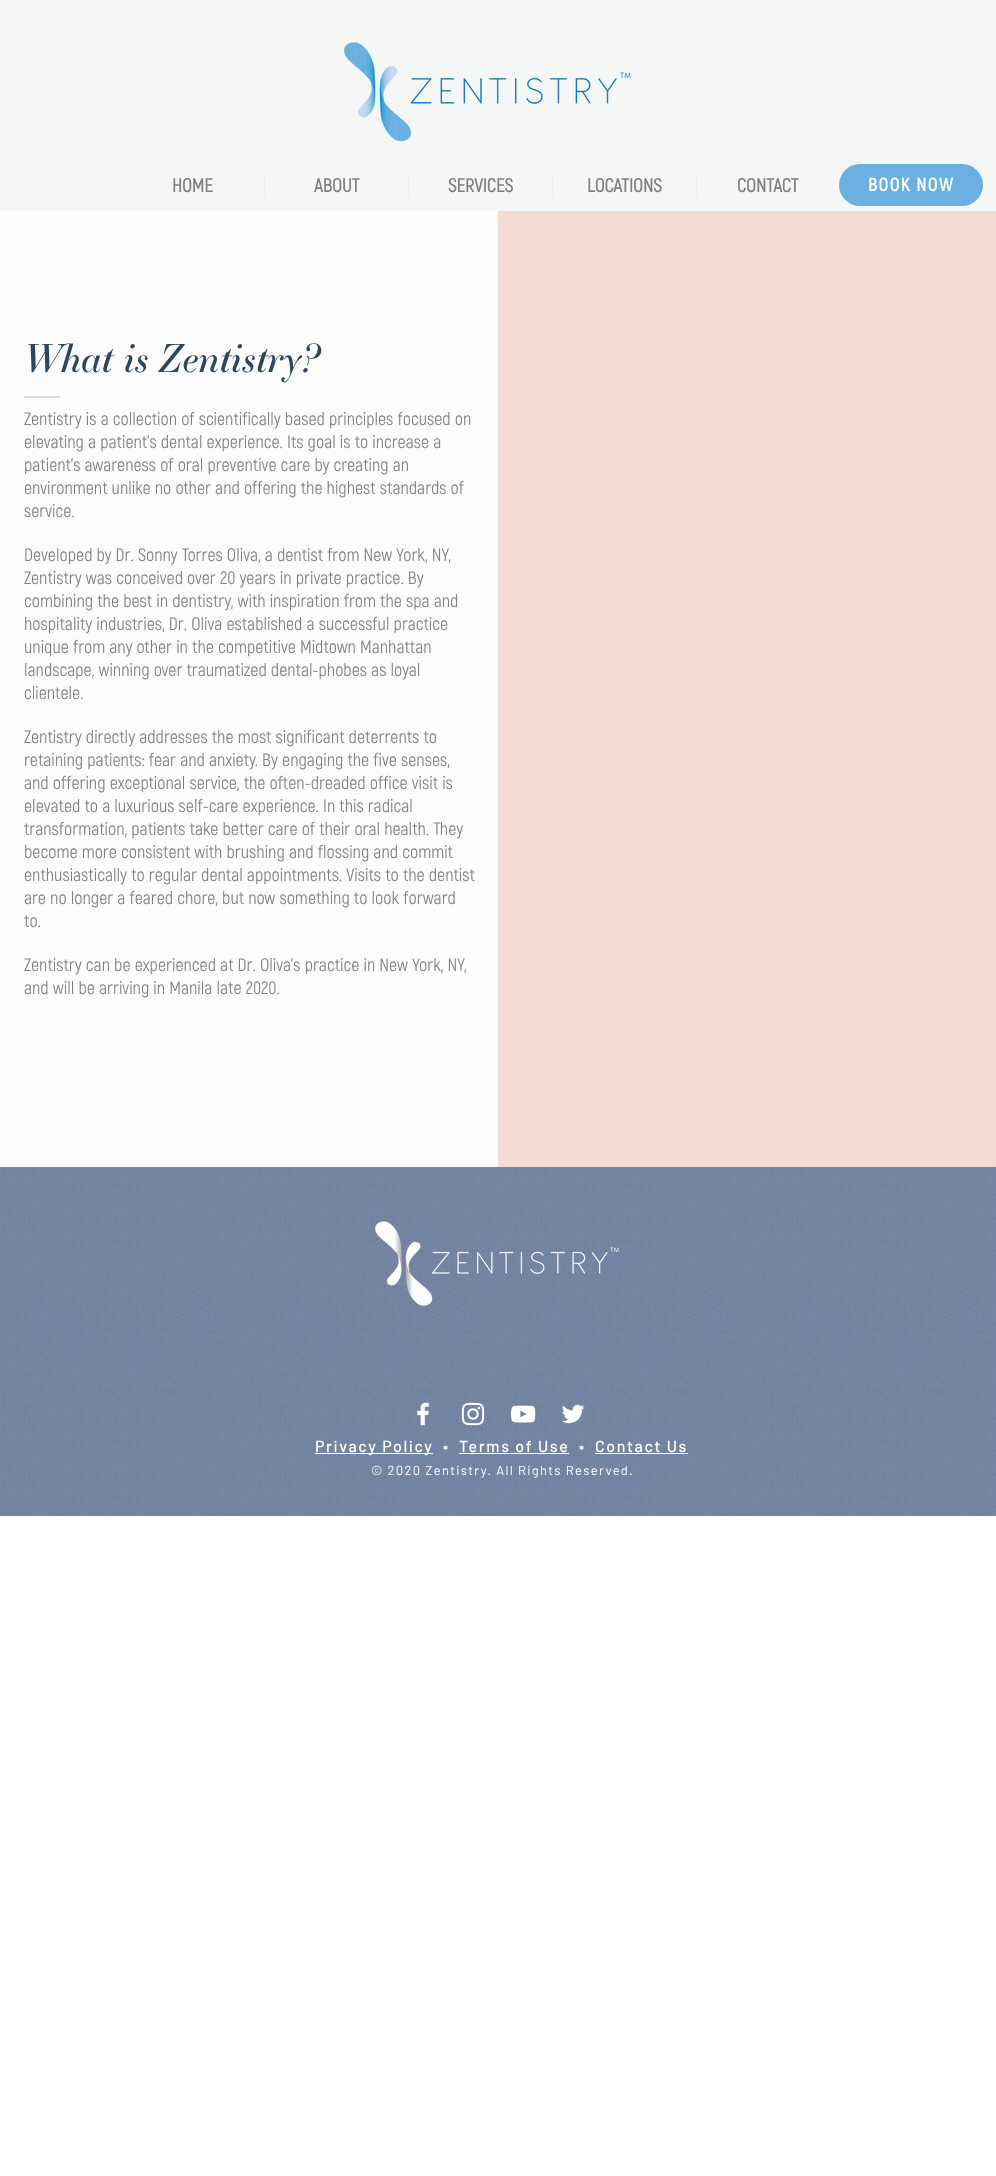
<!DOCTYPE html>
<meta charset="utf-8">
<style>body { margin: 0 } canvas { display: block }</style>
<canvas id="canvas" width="996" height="2176"></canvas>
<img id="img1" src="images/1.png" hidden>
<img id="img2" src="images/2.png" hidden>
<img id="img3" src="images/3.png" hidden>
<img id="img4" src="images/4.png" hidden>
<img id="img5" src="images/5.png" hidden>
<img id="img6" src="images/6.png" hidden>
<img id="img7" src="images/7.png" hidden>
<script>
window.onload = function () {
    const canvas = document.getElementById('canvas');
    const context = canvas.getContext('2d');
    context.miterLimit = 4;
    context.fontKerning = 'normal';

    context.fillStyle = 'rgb(255, 255, 255)';
    context.fillRect(0, 0, 996, 2176);
    context.fillStyle = 'rgb(245, 247, 246)';
    context.fillRect(0, 0, 996, 211);
    context.drawImage(document.getElementById('img1'), 343, 42, 288, 100);
    context.fillStyle = 'rgb(237, 238, 238)';
    context.fillRect(264, 173, 1, 25);
    context.fillRect(408, 173, 1, 25);
    context.fillRect(552, 173, 1, 25);
    context.fillRect(696, 173, 1, 25);
    context.fillStyle = 'rgb(106, 176, 225)';
    context.beginPath();
    context.roundRect(839, 164, 144, 42, 21);
    context.fill();
    context.fillStyle = 'rgb(252, 252, 252)';
    context.fillRect(0, 211, 498, 956);
    context.fillStyle = 'rgb(219, 219, 219)';
    context.fillRect(24, 396, 36, 2);
    context.fillStyle = 'rgb(241, 219, 211)';
    context.fillRect(498, 211, 498, 956);
    context.fillStyle = 'rgb(118, 136, 167)';
    context.fillRect(0, 1167, 996, 349);
    context.drawImage(document.getElementById('img2'), 0, 1167, 996, 349);
    context.drawImage(document.getElementById('img3'), 375, 1221, 245, 85);
    context.drawImage(document.getElementById('img4'), 417, 1402, 13, 24);
    context.drawImage(document.getElementById('img5'), 461, 1402, 24, 24);
    context.drawImage(document.getElementById('img6'), 510, 1405, 26, 18);
    context.drawImage(document.getElementById('img7'), 562, 1404, 23, 20);
    context.fillStyle = 'rgb(255, 255, 255)';
    context.fillRect(315, 1453, 118, 1);
    context.fillRect(459, 1453, 110, 1);
    context.fillRect(595, 1453, 93, 1);
    context.font = 'bold 19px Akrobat';
    context.fillStyle = 'rgb(128, 128, 128)';
    context.fillText('HOME', 172, 192);
    context.fillText('ABOUT', 314, 192);
    context.fillText('SERVICES', 448, 192);
    context.fillText('LOCATIONS', 587, 192);
    context.fillText('CONTACT', 737, 192);
    context.letterSpacing = '1px';
    context.font = 'bold 19px "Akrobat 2"';
    context.fillStyle = 'rgb(255, 255, 255)';
    context.fillText('BOOK NOW', 868, 191);
    context.letterSpacing = '0px';
    context.font = 'italic 38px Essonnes';
    context.fillStyle = 'rgb(47, 69, 93)';
    context.fillText('What is Zentistry?', 24, 372);
    context.font = '18px Akrobat';
    context.fillStyle = 'rgb(128, 128, 128)';
    context.fillText('Zentistry is a collection of scientifically based principles focused on', 24, 425);
    context.fillText('elevating a patient’s dental experience. Its goal is to increase a', 24, 448);
    context.fillText('patient’s awareness of oral preventive care by creating an', 24, 471);
    context.fillText('environment unlike no other and offering the highest standards of', 24, 494);
    context.fillText('service.', 24, 517);
    context.fillText('Developed by Dr. Sonny Torres Oliva, a dentist from New York, NY,', 24, 561);
    context.fillText('Zentistry was conceived over 20 years in private practice. By', 24, 584);
    context.fillText('combining the best in dentistry, with inspiration from the spa and', 24, 607);
    context.fillText('hospitality industries, Dr. Oliva established a successful practice', 24, 630);
    context.fillText('unique from any other in the competitive Midtown Manhattan', 24, 653);
    context.fillText('landscape, winning over traumatized dental-phobes as loyal', 24, 676);
    context.fillText('clientele.', 24, 699);
    context.fillText('Zentistry directly addresses the most significant deterrents to', 24, 743);
    context.fillText('retaining patients: fear and anxiety. By engaging the five senses,', 24, 766);
    context.fillText('and offering exceptional service, the often-dreaded office visit is', 24, 789);
    context.fillText('elevated to a luxurious self-care experience. In this radical', 24, 812);
    context.fillText('transformation, patients take better care of their oral health. They', 24, 835);
    context.fillText('become more consistent with brushing and flossing and commit', 24, 858);
    context.fillText('enthusiastically to regular dental appointments. Visits to the dentist', 24, 881);
    context.fillText('are no longer a feared chore, but now something to look forward', 24, 904);
    context.fillText('to.', 24, 927);
    context.fillText('Zentistry can be experienced at Dr. Oliva’s practice in New York, NY,', 24, 971);
    context.fillText('and will be arriving in Manila late 2020.', 24, 994);
    context.letterSpacing = '1.6px';
    context.font = '500 16px Barlow';
    context.fillStyle = 'rgb(255, 255, 255)';
    context.fillText('Privacy Policy', 315, 1452);
    context.fillText('•', 443, 1452);
    context.fillText('Terms of Use', 459, 1452);
    context.fillText('•', 579, 1452);
    context.fillText('Contact Us', 595, 1452);
    context.letterSpacing = '1.3px';
    context.font = '13px Barlow';
    context.fillText('© 2020 Zentistry. All Rights Reserved.', 371, 1475);
};
</script>
